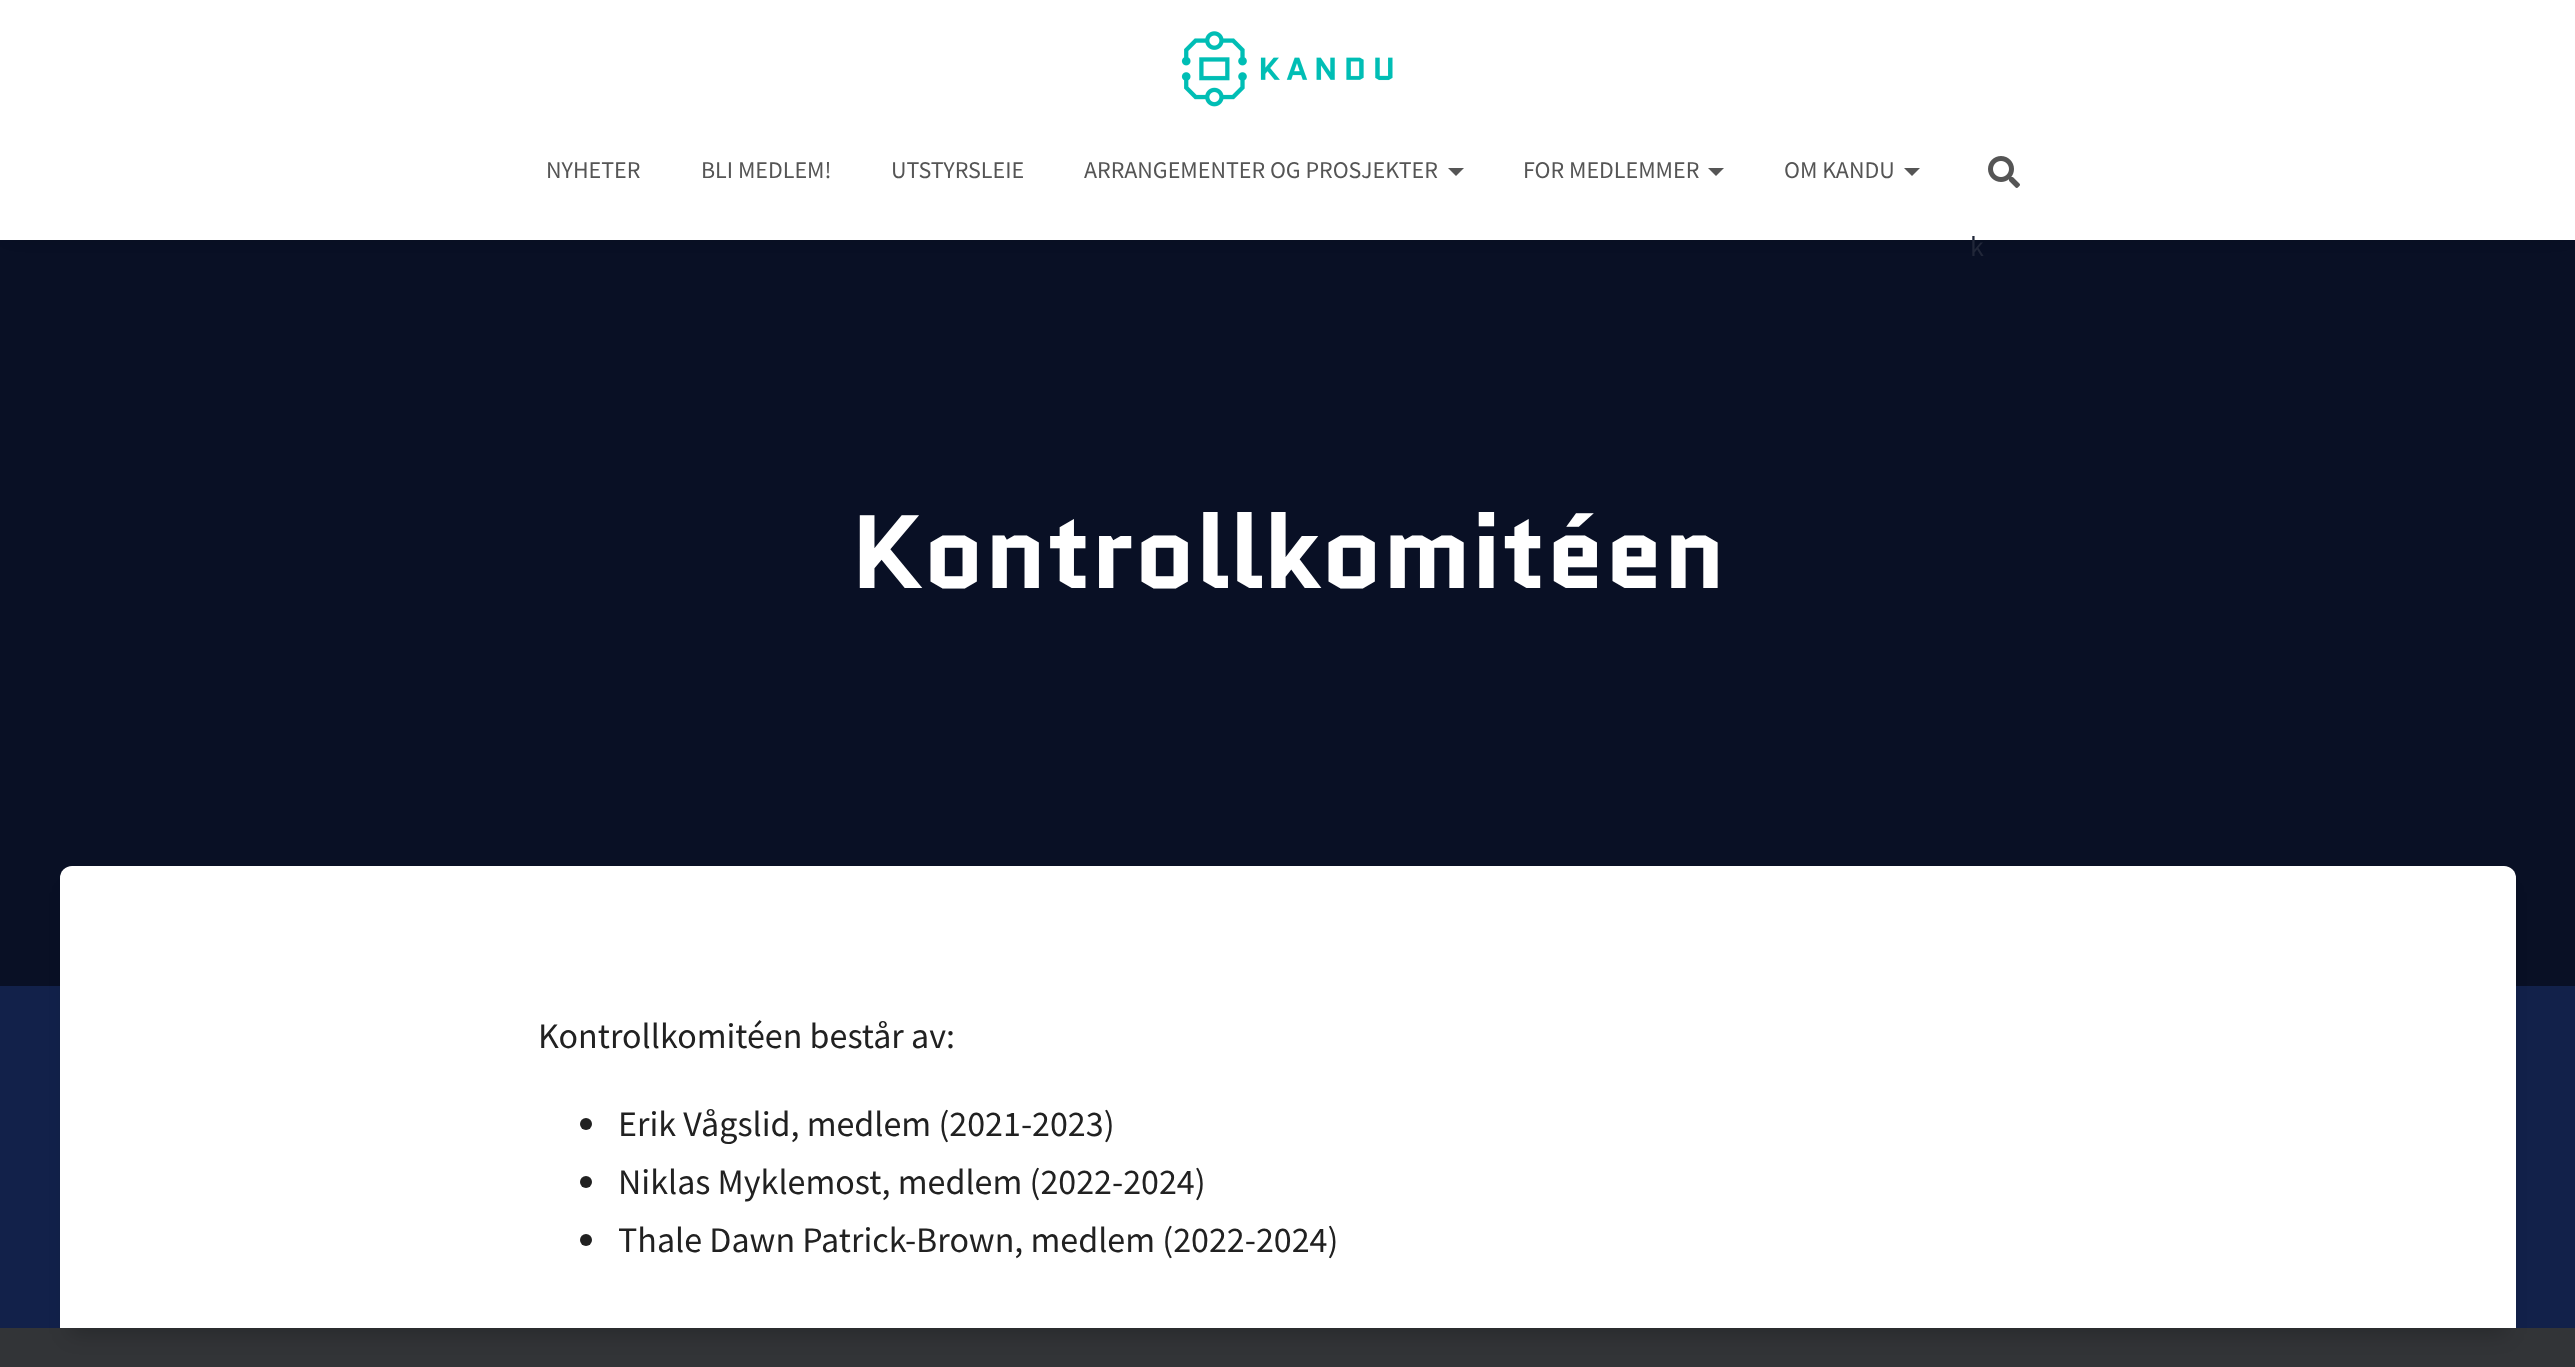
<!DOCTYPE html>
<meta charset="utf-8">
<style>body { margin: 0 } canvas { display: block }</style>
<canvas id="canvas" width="2575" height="1367"></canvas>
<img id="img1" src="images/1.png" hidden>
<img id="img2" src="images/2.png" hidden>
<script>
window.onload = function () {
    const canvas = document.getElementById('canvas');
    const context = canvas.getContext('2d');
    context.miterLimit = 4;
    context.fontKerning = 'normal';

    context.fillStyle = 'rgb(18, 33, 74)';
    context.fillRect(0, 0, 2575, 1367);
    context.fillStyle = 'rgb(9, 16, 37)';
    context.fillRect(0, 240, 2575, 746);
    context.fillStyle = 'rgba(0, 0, 0, 0.42)';
    context.filter = 'blur(10px)';
    context.beginPath();
    context.rect(12, 14, 2552, 216);
    context.fill();
    context.filter = 'none';
    context.fillStyle = 'rgb(255, 255, 255)';
    context.fillRect(0, 0, 2575, 240);
    context.drawImage(document.getElementById('img1'), 1181, 31, 212, 76);
    context.fillStyle = 'rgb(85, 85, 85)';
    context.beginPath();
    context.moveTo(1448, 168);
    context.lineTo(1464, 168);
    context.lineTo(1456, 176);
    context.closePath();
    context.fill();
    context.beginPath();
    context.moveTo(1708, 168);
    context.lineTo(1724, 168);
    context.lineTo(1716, 176);
    context.closePath();
    context.fill();
    context.beginPath();
    context.moveTo(1904, 168);
    context.lineTo(1920, 168);
    context.lineTo(1912, 176);
    context.closePath();
    context.fill();
    context.drawImage(document.getElementById('img2'), 1988, 156, 32, 32);
    context.fillStyle = 'rgb(50, 52, 55)';
    context.fillRect(0, 1328, 2575, 39);
    context.fillStyle = 'rgba(0, 0, 0, 0.2)';
    context.filter = 'blur(10px)';
    context.beginPath();
    context.roundRect(70, 892, 2436, 442, 2);
    context.fill();
    context.filter = 'none';
    context.fillStyle = 'rgb(255, 255, 255)';
    context.beginPath();
    context.roundRect(60, 866, 2456, 462, [12, 12, 0, 0]);
    context.fill();
    context.fillStyle = 'rgb(33, 33, 33)';
    context.beginPath();
    context.arc(586, 1124, 6, 0, 2 * Math.PI);
    context.fill();
    context.beginPath();
    context.arc(586, 1182, 6, 0, 2 * Math.PI);
    context.fill();
    context.beginPath();
    context.arc(586, 1240, 6, 0, 2 * Math.PI);
    context.fill();
    context.font = '24px Source Sans Pro';
    context.fillStyle = 'rgb(85, 85, 85)';
    context.fillText('NYHETER', 546, 178);
    context.fillText('BLI MEDLEM!', 701, 178);
    context.fillText('UTSTYRSLEIE', 891, 178);
    context.fillText('ARRANGEMENTER OG PROSJEKTER', 1084, 178);
    context.fillText('FOR MEDLEMMER', 1523, 178);
    context.fillText('OM KANDU', 1784, 178);
    context.font = '28px Source Sans Pro';
    context.fillStyle = 'rgb(33, 39, 57)';
    context.fillText('k', 1970, 256);
    context.font = 'bold 104px Quantico';
    context.fillStyle = 'rgb(255, 255, 255)';
    context.fillText('Kontrollkomitéen', 851, 588);
    context.font = '36px Source Sans Pro';
    context.fillStyle = 'rgb(33, 33, 33)';
    context.fillText('Kontrollkomitéen består av:', 538, 1048);
    context.fillText('Erik Vågslid, medlem (2021-2023)', 618, 1136);
    context.fillText('Niklas Myklemost, medlem (2022-2024)', 618, 1194);
    context.fillText('Thale Dawn Patrick-Brown, medlem (2022-2024)', 618, 1252);
};
</script>
